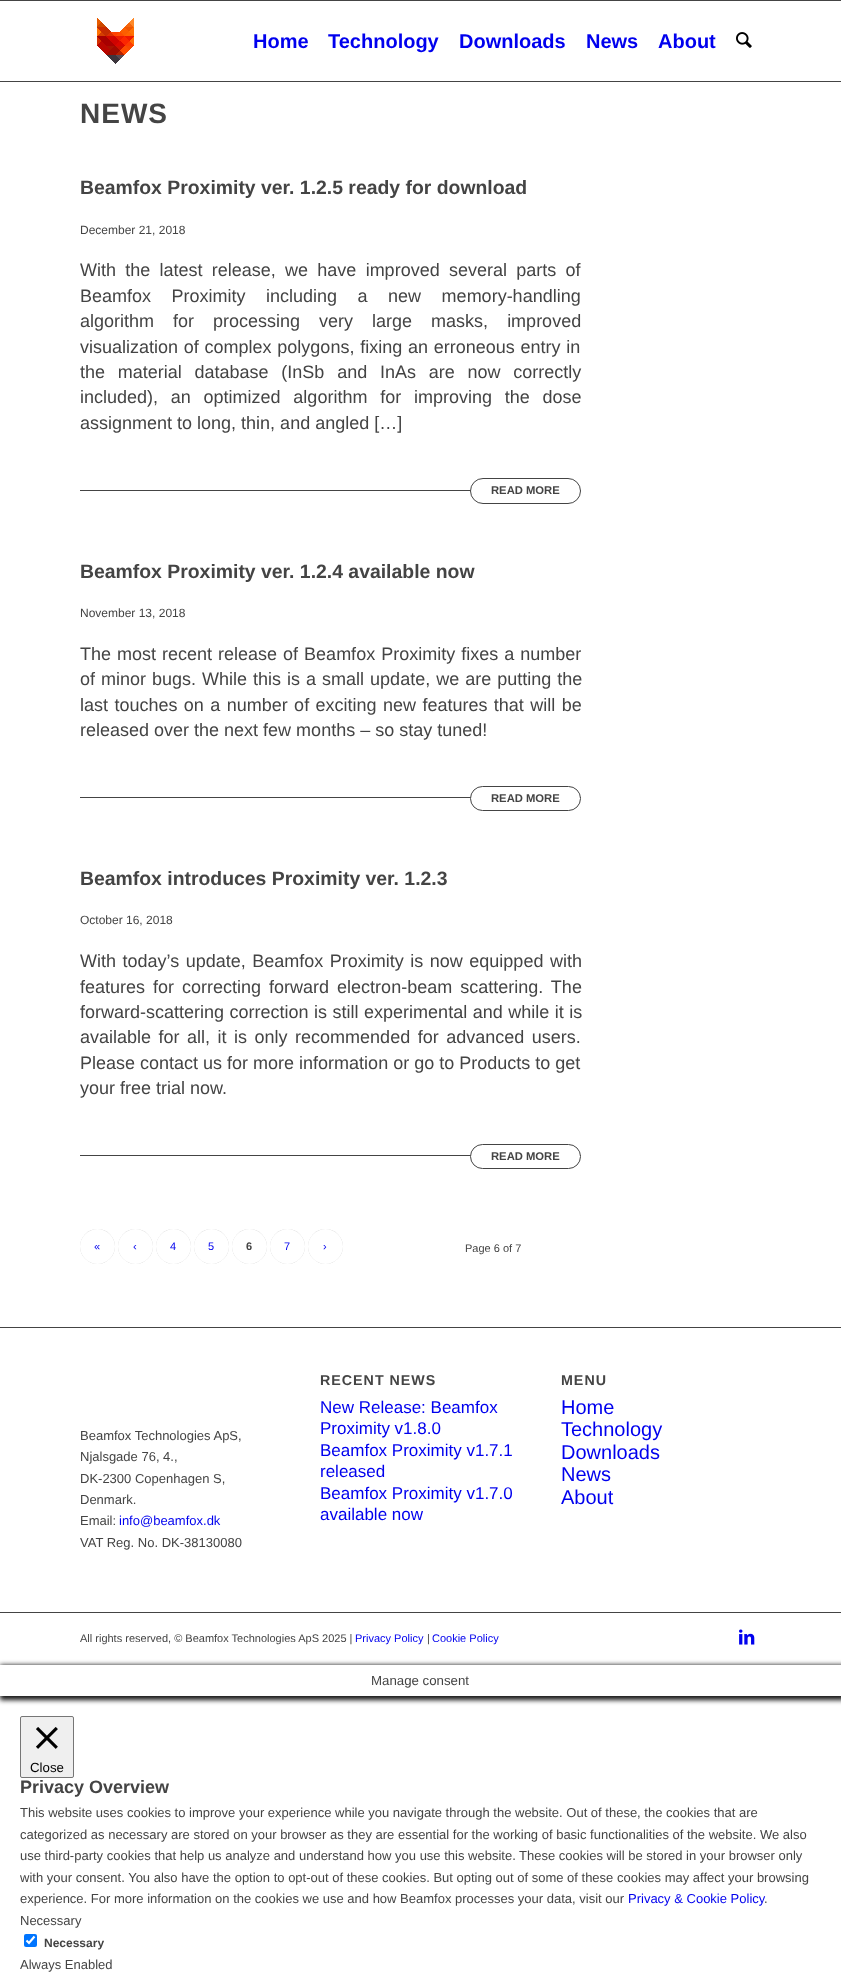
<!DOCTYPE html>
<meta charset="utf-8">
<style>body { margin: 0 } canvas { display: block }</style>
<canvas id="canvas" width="841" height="1976"></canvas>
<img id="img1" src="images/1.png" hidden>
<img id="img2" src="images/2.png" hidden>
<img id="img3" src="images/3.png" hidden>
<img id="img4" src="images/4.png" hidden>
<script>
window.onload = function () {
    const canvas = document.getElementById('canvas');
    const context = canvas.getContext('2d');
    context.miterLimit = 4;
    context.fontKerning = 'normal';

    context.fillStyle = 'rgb(255, 255, 255)';
    context.fillRect(0, 0, 841, 1976);
    context.fillStyle = 'rgb(68, 68, 68)';
    context.fillRect(0, 0, 841, 1);
    context.fillRect(0, 81, 841, 1);
    context.drawImage(document.getElementById('img1'), 97, 18, 37, 46);
    context.drawImage(document.getElementById('img2'), 736, 32, 16, 16);
    context.fillRect(80, 490, 501, 1);
    context.fillStyle = 'rgb(255, 255, 255)';
    context.beginPath();
    context.roundRect(470.5, 478.5, 110, 25, 12.5);
    context.fill();
    context.strokeStyle = 'rgb(68, 68, 68)';
    context.stroke();
    context.fillStyle = 'rgb(68, 68, 68)';
    context.fillRect(80, 797, 501, 1);
    context.fillStyle = 'rgb(255, 255, 255)';
    context.beginPath();
    context.roundRect(470.5, 786.5, 110, 24, 12);
    context.fill();
    context.stroke();
    context.fillStyle = 'rgb(68, 68, 68)';
    context.fillRect(80, 1155, 501, 1);
    context.fillStyle = 'rgb(255, 255, 255)';
    context.beginPath();
    context.roundRect(470.5, 1144.5, 110, 24, 12);
    context.fill();
    context.stroke();
    context.save();
    context.beginPath();
    context.moveTo(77, 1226);
    context.lineTo(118, 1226);
    context.lineTo(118, 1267);
    context.lineTo(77, 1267);
    context.closePath();
    context.moveTo(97.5, 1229);
    context.bezierCurveTo(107, 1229, 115, 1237, 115, 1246.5);
    context.bezierCurveTo(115, 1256, 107, 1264, 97.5, 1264);
    context.bezierCurveTo(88, 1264, 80, 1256, 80, 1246.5);
    context.bezierCurveTo(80, 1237, 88, 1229, 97.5, 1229);
    context.closePath();
    context.clip('evenodd');
    context.fillStyle = 'rgba(0, 0, 0, 0.2)';
    context.filter = 'blur(0.5px)';
    context.beginPath();
    context.roundRect(80, 1229, 35, 35, 17.5);
    context.fill();
    context.filter = 'none';
    context.restore();
    context.save();
    context.beginPath();
    context.moveTo(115, 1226);
    context.lineTo(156, 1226);
    context.lineTo(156, 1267);
    context.lineTo(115, 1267);
    context.closePath();
    context.moveTo(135.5, 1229);
    context.bezierCurveTo(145, 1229, 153, 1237, 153, 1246.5);
    context.bezierCurveTo(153, 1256, 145, 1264, 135.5, 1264);
    context.bezierCurveTo(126, 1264, 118, 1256, 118, 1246.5);
    context.bezierCurveTo(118, 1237, 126, 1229, 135.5, 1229);
    context.closePath();
    context.clip('evenodd');
    context.fillStyle = 'rgba(0, 0, 0, 0.2)';
    context.filter = 'blur(0.5px)';
    context.beginPath();
    context.roundRect(118, 1229, 35, 35, 17.5);
    context.fill();
    context.filter = 'none';
    context.restore();
    context.save();
    context.beginPath();
    context.moveTo(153, 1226);
    context.lineTo(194, 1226);
    context.lineTo(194, 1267);
    context.lineTo(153, 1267);
    context.closePath();
    context.moveTo(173.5, 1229);
    context.bezierCurveTo(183, 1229, 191, 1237, 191, 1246.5);
    context.bezierCurveTo(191, 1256, 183, 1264, 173.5, 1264);
    context.bezierCurveTo(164, 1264, 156, 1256, 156, 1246.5);
    context.bezierCurveTo(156, 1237, 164, 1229, 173.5, 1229);
    context.closePath();
    context.clip('evenodd');
    context.fillStyle = 'rgba(0, 0, 0, 0.2)';
    context.filter = 'blur(0.5px)';
    context.beginPath();
    context.roundRect(156, 1229, 35, 35, 17.5);
    context.fill();
    context.filter = 'none';
    context.restore();
    context.save();
    context.beginPath();
    context.moveTo(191, 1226);
    context.lineTo(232, 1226);
    context.lineTo(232, 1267);
    context.lineTo(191, 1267);
    context.closePath();
    context.moveTo(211.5, 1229);
    context.bezierCurveTo(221, 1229, 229, 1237, 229, 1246.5);
    context.bezierCurveTo(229, 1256, 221, 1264, 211.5, 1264);
    context.bezierCurveTo(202, 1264, 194, 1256, 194, 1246.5);
    context.bezierCurveTo(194, 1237, 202, 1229, 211.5, 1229);
    context.closePath();
    context.clip('evenodd');
    context.fillStyle = 'rgba(0, 0, 0, 0.2)';
    context.filter = 'blur(0.5px)';
    context.beginPath();
    context.roundRect(194, 1229, 35, 35, 17.5);
    context.fill();
    context.filter = 'none';
    context.restore();
    context.save();
    context.beginPath();
    context.moveTo(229, 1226);
    context.lineTo(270, 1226);
    context.lineTo(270, 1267);
    context.lineTo(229, 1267);
    context.closePath();
    context.moveTo(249.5, 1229);
    context.bezierCurveTo(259, 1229, 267, 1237, 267, 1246.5);
    context.bezierCurveTo(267, 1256, 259, 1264, 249.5, 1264);
    context.bezierCurveTo(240, 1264, 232, 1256, 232, 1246.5);
    context.bezierCurveTo(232, 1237, 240, 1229, 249.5, 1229);
    context.closePath();
    context.clip('evenodd');
    context.fillStyle = 'rgba(0, 0, 0, 0.2)';
    context.filter = 'blur(0.5px)';
    context.beginPath();
    context.roundRect(232, 1229, 35, 35, 17.5);
    context.fill();
    context.filter = 'none';
    context.restore();
    context.save();
    context.beginPath();
    context.moveTo(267, 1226);
    context.lineTo(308, 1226);
    context.lineTo(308, 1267);
    context.lineTo(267, 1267);
    context.closePath();
    context.moveTo(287.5, 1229);
    context.bezierCurveTo(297, 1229, 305, 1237, 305, 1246.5);
    context.bezierCurveTo(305, 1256, 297, 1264, 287.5, 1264);
    context.bezierCurveTo(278, 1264, 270, 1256, 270, 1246.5);
    context.bezierCurveTo(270, 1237, 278, 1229, 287.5, 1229);
    context.closePath();
    context.clip('evenodd');
    context.fillStyle = 'rgba(0, 0, 0, 0.2)';
    context.filter = 'blur(0.5px)';
    context.beginPath();
    context.roundRect(270, 1229, 35, 35, 17.5);
    context.fill();
    context.filter = 'none';
    context.restore();
    context.save();
    context.beginPath();
    context.moveTo(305, 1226);
    context.lineTo(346, 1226);
    context.lineTo(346, 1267);
    context.lineTo(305, 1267);
    context.closePath();
    context.moveTo(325.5, 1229);
    context.bezierCurveTo(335, 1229, 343, 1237, 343, 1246.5);
    context.bezierCurveTo(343, 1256, 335, 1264, 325.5, 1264);
    context.bezierCurveTo(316, 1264, 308, 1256, 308, 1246.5);
    context.bezierCurveTo(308, 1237, 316, 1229, 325.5, 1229);
    context.closePath();
    context.clip('evenodd');
    context.fillStyle = 'rgba(0, 0, 0, 0.2)';
    context.filter = 'blur(0.5px)';
    context.beginPath();
    context.roundRect(308, 1229, 35, 35, 17.5);
    context.fill();
    context.filter = 'none';
    context.restore();
    context.fillStyle = 'rgb(68, 68, 68)';
    context.fillRect(0, 1327, 841, 1);
    context.fillRect(0, 1612, 841, 1);
    context.drawImage(document.getElementById('img3'), 739, 1629, 16, 16);
    context.save();
    context.beginPath();
    context.moveTo(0, 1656);
    context.lineTo(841, 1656);
    context.lineTo(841, 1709);
    context.lineTo(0, 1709);
    context.closePath();
    context.moveTo(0, 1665);
    context.lineTo(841, 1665);
    context.lineTo(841, 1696);
    context.lineTo(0, 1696);
    context.closePath();
    context.clip('evenodd');
    context.fillStyle = 'rgb(22, 22, 22)';
    context.filter = 'blur(2.5px)';
    context.beginPath();
    context.rect(0, 1665, 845, 35);
    context.fill();
    context.filter = 'none';
    context.restore();
    context.fillStyle = 'rgb(239, 239, 239)';
    context.beginPath();
    context.roundRect(20.5, 1716.5, 53, 61, 1.5);
    context.fill();
    context.strokeStyle = 'rgb(118, 118, 118)';
    context.stroke();
    context.drawImage(document.getElementById('img4'), 36, 1727, 22, 22);
    context.fillStyle = 'rgb(0, 117, 255)';
    context.beginPath();
    context.roundRect(24, 1934, 13, 13, 2);
    context.fill();
    context.beginPath();
    context.moveTo(26.5, 1940.5);
    context.lineTo(29, 1943);
    context.lineTo(34.5, 1936.5);
    context.strokeStyle = 'rgb(255, 255, 255)';
    context.lineWidth = 2.1;
    context.stroke();
    context.font = 'bold 20px Liberation Sans';
    context.fillStyle = 'rgb(0, 0, 238)';
    context.fillText('Home', 253, 48);
    context.fillText('Technology', 328, 48);
    context.fillText('Downloads', 459, 48);
    context.fillText('News', 586, 48);
    context.fillText('About', 658, 48);
    context.letterSpacing = '1px';
    context.font = 'bold 28px Liberation Sans';
    context.fillStyle = 'rgb(68, 68, 68)';
    context.fillText('NEWS', 80, 123);
    context.letterSpacing = '0px';
    context.font = 'bold 19.4px Liberation Sans';
    context.fillText('Beamfox Proximity ver. 1.2.5 ready for download', 80, 194);
    context.font = '12px Liberation Sans';
    context.fillText('December 21, 2018', 80, 234);
    context.wordSpacing = '4.25px';
    context.font = '18px Liberation Sans';
    context.fillText('With the latest release, we have improved several parts of', 80, 276);
    context.wordSpacing = '15.5px';
    context.fillText('Beamfox Proximity including a new memory-handling', 80, 302);
    context.wordSpacing = '14px';
    context.fillText('algorithm for processing very large masks, improved', 80, 327);
    context.wordSpacing = '0.75px';
    context.fillText('visualization of complex polygons, fixing an erroneous entry in', 80, 353);
    context.wordSpacing = '7.75px';
    context.fillText('the material database (InSb and InAs are now correctly', 80, 378);
    context.fillText('included), an optimized algorithm for improving the dose', 80, 403);
    context.wordSpacing = '0px';
    context.fillText('assignment to long, thin, and angled […]', 80, 429);
    context.font = 'bold 11.25px Liberation Sans';
    context.fillText('READ MORE', 491, 494);
    context.font = 'bold 19.4px Liberation Sans';
    context.fillText('Beamfox Proximity ver. 1.2.4 available now', 80, 578);
    context.font = '12px Liberation Sans';
    context.fillText('November 13, 2018', 80, 617);
    context.wordSpacing = '1px';
    context.font = '18px Liberation Sans';
    context.fillText('The most recent release of Beamfox Proximity fixes a number', 80, 660);
    context.fillText('of minor bugs. While this is a small update, we are putting the', 80, 685);
    context.wordSpacing = '1.4px';
    context.fillText('last touches on a number of exciting new features that will be', 80, 711);
    context.wordSpacing = '0px';
    context.fillText('released over the next few months – so stay tuned!', 80, 736);
    context.font = 'bold 11.25px Liberation Sans';
    context.fillText('READ MORE', 491, 802);
    context.font = 'bold 19.4px Liberation Sans';
    context.fillText('Beamfox introduces Proximity ver. 1.2.3', 80, 885);
    context.font = '12px Liberation Sans';
    context.fillText('October 16, 2018', 80, 924);
    context.wordSpacing = '1.5px';
    context.font = '18px Liberation Sans';
    context.fillText('With today’s update, Beamfox Proximity is now equipped with', 80, 967);
    context.wordSpacing = '3px';
    context.fillText('features for correcting forward electron-beam scattering. The', 80, 993);
    context.wordSpacing = '0.5px';
    context.fillText('forward-scattering correction is still experimental and while it is', 80, 1018);
    context.wordSpacing = '2.5px';
    context.fillText('available for all, it is only recommended for advanced users.', 80, 1043);
    context.wordSpacing = '0px';
    context.fillText('Please contact us for more information or go to Products to get', 80, 1069);
    context.fillText('your free trial now.', 80, 1094);
    context.font = 'bold 11.25px Liberation Sans';
    context.fillText('READ MORE', 491, 1160);
    context.font = '11px Liberation Sans';
    context.fillStyle = 'rgb(0, 0, 238)';
    context.fillText('«', 94, 1250);
    context.fillText('‹', 133, 1250);
    context.fillText('4', 170, 1250);
    context.fillText('5', 208, 1250);
    context.font = 'bold 11px Liberation Sans';
    context.fillStyle = 'rgb(68, 68, 68)';
    context.fillText('6', 246, 1250);
    context.font = '11px Liberation Sans';
    context.fillStyle = 'rgb(0, 0, 238)';
    context.fillText('7', 284, 1250);
    context.fillText('›', 323, 1250);
    context.fillStyle = 'rgb(68, 68, 68)';
    context.fillText('Page 6 of 7', 465, 1252);
    context.font = '13px Liberation Sans';
    context.fillText('Beamfox Technologies ApS,', 80, 1440);
    context.fillText('Njalsgade 76, 4.,', 80, 1461);
    context.fillText('DK-2300 Copenhagen S,', 80, 1483);
    context.fillText('Denmark.', 80, 1504);
    context.fillText('Email:', 80, 1525);
    context.fillStyle = 'rgb(0, 0, 238)';
    context.fillText('info@beamfox.dk', 119, 1525);
    context.fillStyle = 'rgb(68, 68, 68)';
    context.fillText('VAT Reg. No. DK-38130080', 80, 1547);
    context.letterSpacing = '1px';
    context.font = 'bold 14.25px Liberation Sans';
    context.fillText('RECENT NEWS', 320, 1385);
    context.letterSpacing = '0px';
    context.font = '17px Liberation Sans';
    context.fillStyle = 'rgb(0, 0, 238)';
    context.fillText('New Release: Beamfox', 320, 1413);
    context.fillText('Proximity v1.8.0', 320, 1434);
    context.fillText('Beamfox Proximity v1.7.1', 320, 1456);
    context.fillText('released', 320, 1477);
    context.fillText('Beamfox Proximity v1.7.0', 320, 1499);
    context.fillText('available now', 320, 1520);
    context.letterSpacing = '1px';
    context.font = 'bold 14.25px Liberation Sans';
    context.fillStyle = 'rgb(68, 68, 68)';
    context.fillText('MENU', 561, 1385);
    context.letterSpacing = '0px';
    context.font = '20px Liberation Sans';
    context.fillStyle = 'rgb(0, 0, 238)';
    context.fillText('Home', 561, 1414);
    context.fillText('Technology', 561, 1436);
    context.fillText('Downloads', 561, 1459);
    context.fillText('News', 561, 1481);
    context.fillText('About', 561, 1504);
    context.font = '11px Liberation Sans';
    context.fillStyle = 'rgb(68, 68, 68)';
    context.fillText('All rights reserved, © Beamfox Technologies ApS 2025 |', 80, 1642);
    context.fillStyle = 'rgb(0, 0, 238)';
    context.fillText('Privacy Policy', 355, 1642);
    context.fillStyle = 'rgb(68, 68, 68)';
    context.fillText('|', 427, 1642);
    context.fillStyle = 'rgb(0, 0, 238)';
    context.fillText('Cookie Policy', 432, 1642);
    context.font = '13.25px Liberation Sans';
    context.fillStyle = 'rgb(68, 68, 68)';
    context.fillText('Manage consent', 371, 1685);
    context.fillStyle = 'rgb(0, 0, 0)';
    context.fillText('Close', 30, 1772);
    context.font = 'bold 18px Liberation Sans';
    context.fillStyle = 'rgb(68, 68, 68)';
    context.fillText('Privacy Overview', 20, 1793);
    context.font = '13px Liberation Sans';
    context.fillText('This website uses cookies to improve your experience while you navigate through the website. Out of these, the cookies that are', 20, 1817);
    context.fillText('categorized as necessary are stored on your browser as they are essential for the working of basic functionalities of the website. We also', 20, 1839);
    context.fillText('use third-party cookies that help us analyze and understand how you use this website. These cookies will be stored in your browser only', 20, 1860);
    context.fillText('with your consent. You also have the option to opt-out of these cookies. But opting out of some of these cookies may affect your browsing', 20, 1882);
    context.fillText('experience. For more information on the cookies we use and how Beamfox processes your data, visit our', 20, 1903);
    context.fillStyle = 'rgb(0, 0, 238)';
    context.fillText('Privacy & Cookie Policy', 628, 1903);
    context.fillStyle = 'rgb(68, 68, 68)';
    context.fillText('.', 764, 1903);
    context.fillText('Necessary', 20, 1925);
    context.font = 'bold 12px Liberation Sans';
    context.fillText('Necessary', 44, 1947);
    context.font = '13px Liberation Sans';
    context.fillText('Always Enabled', 20, 1969);
};
</script>
